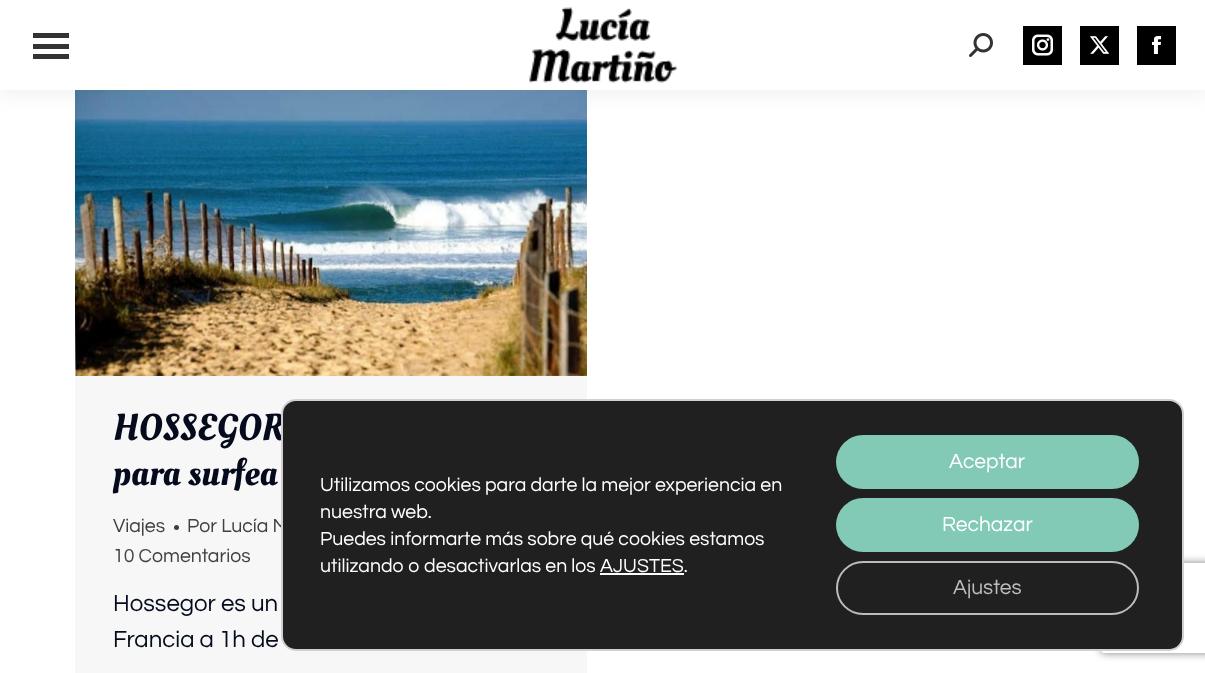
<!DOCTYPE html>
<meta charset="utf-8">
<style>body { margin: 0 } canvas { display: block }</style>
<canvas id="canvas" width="1205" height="673"></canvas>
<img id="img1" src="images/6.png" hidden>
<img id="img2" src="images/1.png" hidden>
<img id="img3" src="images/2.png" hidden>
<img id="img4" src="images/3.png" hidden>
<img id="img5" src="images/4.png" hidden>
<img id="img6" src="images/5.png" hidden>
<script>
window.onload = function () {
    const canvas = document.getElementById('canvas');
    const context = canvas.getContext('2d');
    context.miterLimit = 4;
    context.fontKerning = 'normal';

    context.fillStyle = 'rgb(255, 255, 255)';
    context.fillRect(0, 0, 1205, 673);
    context.fillStyle = 'rgb(247, 247, 247)';
    context.fillRect(75, 375, 512, 298);
    context.drawImage(document.getElementById('img1'), 75, 90, 512, 286);
    context.fillStyle = 'rgba(0, 0, 0, 0.07)';
    context.filter = 'blur(11px)';
    context.beginPath();
    context.rect(-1, -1, 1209, 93);
    context.fill();
    context.filter = 'none';
    context.fillStyle = 'rgb(255, 255, 255)';
    context.fillRect(0, 0, 1205, 90);
    context.fillStyle = 'rgb(51, 51, 51)';
    context.fillRect(33, 33, 36, 5);
    context.fillRect(33, 44, 36, 5);
    context.fillRect(33, 54, 36, 5);
    context.drawImage(document.getElementById('img2'), 529, 7, 148, 76);
    context.drawImage(document.getElementById('img3'), 969, 33, 24, 24);
    context.fillStyle = 'rgb(0, 0, 0)';
    context.fillRect(1023, 26, 39, 39);
    context.drawImage(document.getElementById('img4'), 1032, 34, 21, 22);
    context.fillRect(1080, 26, 39, 39);
    context.drawImage(document.getElementById('img5'), 1089, 36, 21, 18);
    context.fillRect(1137, 26, 39, 39);
    context.drawImage(document.getElementById('img6'), 1151, 36, 11, 18);
    context.fillStyle = 'rgb(64, 64, 64)';
    context.beginPath();
    context.arc(176.5, 527.5, 2.5, 0, 2 * Math.PI);
    context.fill();
    context.save();
    context.beginPath();
    context.moveTo(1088, 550);
    context.lineTo(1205, 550);
    context.lineTo(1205, 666);
    context.lineTo(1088, 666);
    context.closePath();
    context.moveTo(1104, 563);
    context.lineTo(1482, 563);
    context.bezierCurveTo(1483.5, 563, 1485, 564.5, 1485, 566);
    context.lineTo(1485, 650);
    context.bezierCurveTo(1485, 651.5, 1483.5, 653, 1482, 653);
    context.lineTo(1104, 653);
    context.bezierCurveTo(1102.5, 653, 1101, 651.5, 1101, 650);
    context.lineTo(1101, 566);
    context.bezierCurveTo(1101, 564.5, 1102.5, 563, 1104, 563);
    context.closePath();
    context.clip('evenodd');
    context.fillStyle = 'rgb(128, 128, 128)';
    context.filter = 'blur(4px)';
    context.beginPath();
    context.roundRect(1101, 563, 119, 90, 3);
    context.fill();
    context.filter = 'none';
    context.restore();
    context.font = '37.5px Oleo Script';
    context.fillStyle = 'rgb(5, 11, 28)';
    context.fillText('HOSSEGOR', 113, 440);
    context.fillText('para surfea', 113, 485);
    context.font = '19.5px Questrial';
    context.fillStyle = 'rgb(64, 64, 64)';
    context.fillText('Viajes', 113, 532);
    context.fillText('Por Lucía M', 187, 532);
    context.fillText('10 Comentarios', 113, 562);
    context.font = '24px Questrial';
    context.fillStyle = 'rgb(5, 11, 28)';
    context.fillText('Hossegor es un', 113, 611);
    context.fillText('Francia a 1h de', 113, 647);
    context.fillStyle = 'rgb(32, 32, 32)';
    context.beginPath();
    context.roundRect(282, 400, 901, 250, 14);
    context.fill();
    context.strokeStyle = 'rgb(211, 206, 210)';
    context.lineWidth = 2;
    context.stroke();
    context.font = '19.5px Questrial';
    context.fillStyle = 'rgb(255, 255, 255)';
    context.fillText('Utilizamos cookies para darte la mejor experiencia en', 320, 491);
    context.fillText('nuestra web.', 320, 518);
    context.fillText('Puedes informarte más sobre qué cookies estamos', 320, 545);
    context.fillText('utilizando o desactivarlas en los AJUSTES.', 320, 572);
    context.fillRect(600, 573, 84, 2);
    context.fillStyle = 'rgb(130, 201, 182)';
    context.beginPath();
    context.roundRect(836, 435, 303, 54, 27);
    context.fill();
    context.font = '21px Questrial';
    context.fillStyle = 'rgb(255, 255, 255)';
    context.fillText('Aceptar', 949, 468);
    context.fillStyle = 'rgb(130, 201, 182)';
    context.beginPath();
    context.roundRect(836, 498, 303, 54, 27);
    context.fill();
    context.fillStyle = 'rgb(255, 255, 255)';
    context.fillText('Rechazar', 942, 531);
    context.beginPath();
    context.roundRect(837, 562, 301, 52, 26);
    context.strokeStyle = 'rgb(188, 188, 188)';
    context.stroke();
    context.fillStyle = 'rgb(188, 188, 188)';
    context.fillText('Ajustes', 953, 594);
};
</script>
